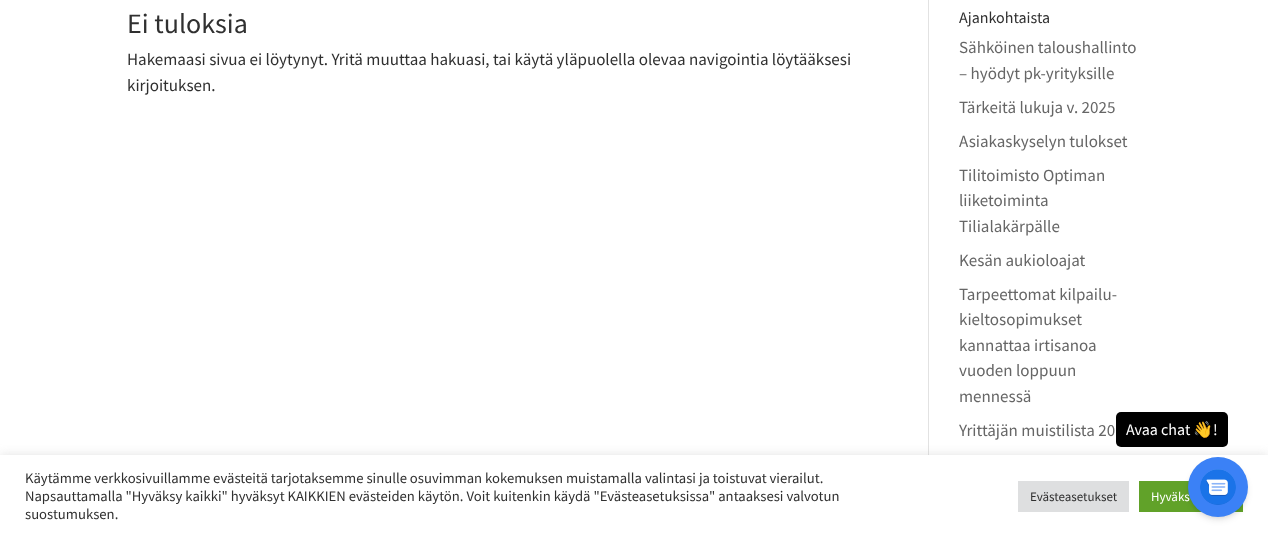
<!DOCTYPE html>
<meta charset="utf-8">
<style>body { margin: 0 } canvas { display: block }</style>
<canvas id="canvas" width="1268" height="537"></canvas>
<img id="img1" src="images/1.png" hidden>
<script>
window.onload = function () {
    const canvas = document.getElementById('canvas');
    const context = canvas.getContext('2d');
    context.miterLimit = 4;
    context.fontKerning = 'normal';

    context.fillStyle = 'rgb(255, 255, 255)';
    context.fillRect(0, 0, 1268, 537);
    context.fillStyle = 'rgb(226, 226, 226)';
    context.fillRect(928, 0, 1, 455);
    context.fillStyle = 'rgba(172, 171, 171, 0.3)';
    context.filter = 'blur(5px)';
    context.beginPath();
    context.rect(0, 454, 1268, 82);
    context.fill();
    context.filter = 'none';
    context.fillStyle = 'rgb(0, 0, 0)';
    context.beginPath();
    context.roundRect(1116, 412, 112, 35, 5);
    context.fill();
    context.fillStyle = 'rgb(255, 255, 255)';
    context.fillRect(0, 455, 1268, 82);
    context.fillStyle = 'rgb(97, 162, 41)';
    context.fillRect(1139, 481, 104, 31);
    context.fillStyle = 'rgba(0, 0, 0, 0.1)';
    context.filter = 'blur(2px)';
    context.beginPath();
    context.roundRect(1190, 461, 56, 56, 28);
    context.fill();
    context.filter = 'none';
    context.filter = 'blur(3px)';
    context.beginPath();
    context.roundRect(1189, 462, 58, 58, 29);
    context.fill();
    context.filter = 'none';
    context.fillStyle = 'rgb(222, 223, 224)';
    context.fillRect(1018, 481, 111, 31);
    context.font = '28px Source Sans Pro';
    context.fillStyle = 'rgb(48, 48, 48)';
    context.fillText('Ei tuloksia', 127, 33);
    context.font = '17px Source Sans Pro';
    context.fillText('Hakemaasi sivua ei löytynyt. Yritä muuttaa hakuasi, tai käytä yläpuolella olevaa navigointia löytääksesi', 127, 65);
    context.fillText('kirjoituksen.', 127, 91);
    context.font = '16px Source Sans Pro';
    context.fillText('Ajankohtaista', 959, 23);
    context.font = '17px Source Sans Pro';
    context.fillStyle = 'rgb(102, 102, 102)';
    context.fillText('Sähköinen taloushallinto', 959, 53);
    context.fillText('– hyödyt pk-yrityksille', 959, 79);
    context.fillText('Tärkeitä lukuja v. 2025', 959, 113);
    context.fillText('Asiakaskyselyn tulokset', 959, 147);
    context.fillText('Tilitoimisto Optiman', 959, 181);
    context.fillText('liiketoiminta', 959, 206);
    context.fillText('Tilialakärpälle', 959, 232);
    context.fillText('Kesän aukioloajat', 959, 266);
    context.fillText('Tarpeettomat kilpailu-', 959, 300);
    context.fillText('kieltosopimukset', 959, 325);
    context.fillText('kannattaa irtisanoa', 959, 351);
    context.fillText('vuoden loppuun', 959, 376);
    context.fillText('mennessä', 959, 402);
    context.fillText('Yrittäjän muistilista 20', 959, 436);
    context.font = '16px Source Sans Pro';
    context.fillStyle = 'rgb(255, 255, 255)';
    context.fillText('Avaa chat', 1126, 435);
    context.font = '16px Noto Color Emoji';
    context.fillText('👋', 1193, 435);
    context.font = '16px Source Sans Pro';
    context.fillText('!', 1213, 435);
    context.font = '14.67px Source Sans Pro';
    context.fillStyle = 'rgb(48, 48, 48)';
    context.fillText('Käytämme verkkosivuillamme evästeitä tarjotaksemme sinulle osuvimman kokemuksen muistamalla valintasi ja toistuvat vierailut.', 25, 483);
    context.fillText('Napsauttamalla "Hyväksy kaikki" hyväksyt KAIKKIEN evästeiden käytön. Voit kuitenkin käydä "Evästeasetuksissa" antaaksesi valvotun', 25, 501);
    context.fillText('suostumuksen.', 25, 519);
    context.font = '13px Source Sans Pro';
    context.fillText('Evästeasetukset', 1030, 501);
    context.fillStyle = 'rgb(255, 255, 255)';
    context.fillText('Hyväks', 1151, 501);
    context.fillStyle = 'rgb(59, 129, 246)';
    context.beginPath();
    context.arc(1218, 487, 30, 0, 2 * Math.PI);
    context.fill();
    context.drawImage(document.getElementById('img1'), 1200, 469, 36, 36);
};
</script>
